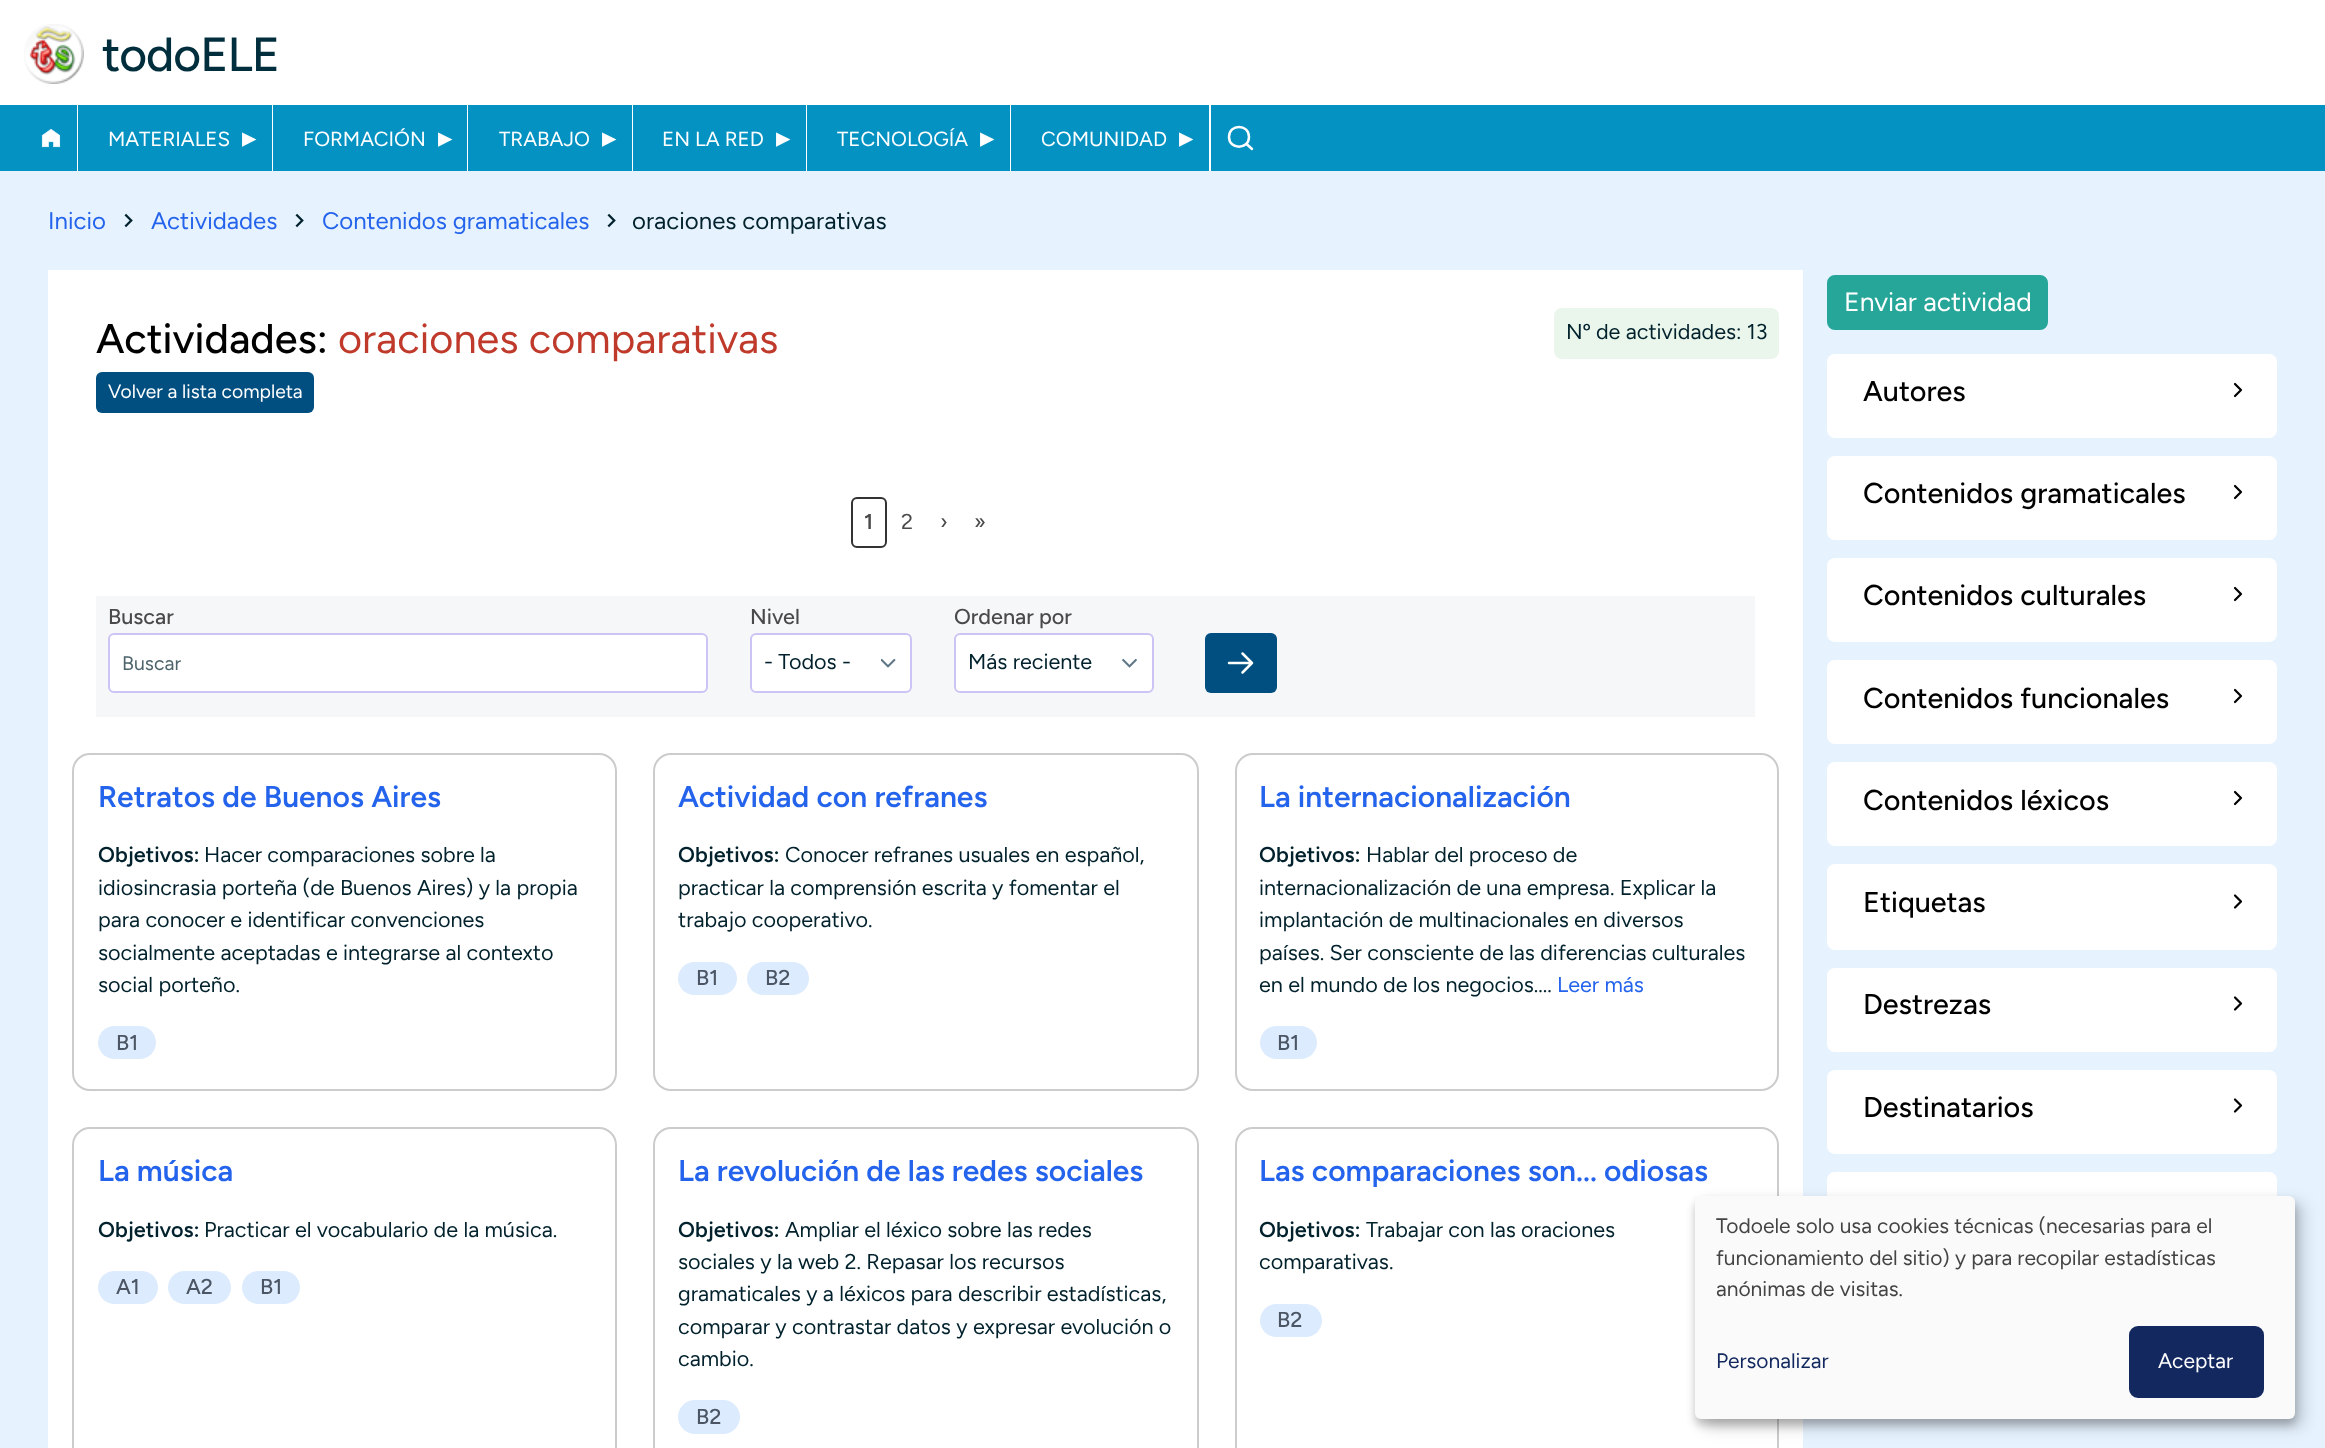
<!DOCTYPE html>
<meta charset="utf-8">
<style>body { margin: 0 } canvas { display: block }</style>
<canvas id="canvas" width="2325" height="1448"></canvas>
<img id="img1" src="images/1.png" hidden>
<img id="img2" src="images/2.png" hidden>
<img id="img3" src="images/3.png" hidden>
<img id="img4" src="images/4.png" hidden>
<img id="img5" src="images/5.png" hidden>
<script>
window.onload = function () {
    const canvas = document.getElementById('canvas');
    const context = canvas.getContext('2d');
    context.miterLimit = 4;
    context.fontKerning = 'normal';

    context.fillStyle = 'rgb(230, 243, 255)';
    context.fillRect(0, 0, 2325, 1448);
    context.fillStyle = 'rgb(255, 255, 255)';
    context.fillRect(0, 0, 2325, 105);
    context.drawImage(document.getElementById('img1'), 24, 24, 60, 60);
    context.fillStyle = 'rgb(4, 146, 194)';
    context.fillRect(0, 105, 2325, 66);
    context.fillStyle = 'rgb(255, 255, 255)';
    context.fillRect(77, 105, 1, 66);
    context.drawImage(document.getElementById('img2'), 41, 129, 20, 19);
    context.fillRect(272, 105, 1, 66);
    context.fillRect(467, 105, 1, 66);
    context.fillRect(632, 105, 1, 66);
    context.fillRect(806, 105, 1, 66);
    context.fillRect(1010, 105, 1, 66);
    context.fillRect(1209, 105, 2, 66);
    context.beginPath();
    context.moveTo(1246.5, 144);
    context.lineTo(1252, 149);
    context.moveTo(1249, 137);
    context.bezierCurveTo(1249, 150, 1229, 150, 1229, 137);
    context.bezierCurveTo(1229, 123.5, 1249, 123.5, 1249, 137);
    context.closePath();
    context.strokeStyle = 'rgb(255, 255, 255)';
    context.lineWidth = 2.5;
    context.lineCap = 'round';
    context.lineJoin = 'round';
    context.stroke();
    context.drawImage(document.getElementById('img3'), 124, 213, 9, 15);
    context.drawImage(document.getElementById('img3'), 295, 213, 9, 15);
    context.drawImage(document.getElementById('img3'), 607, 213, 9, 15);
    context.fillRect(48, 270, 1755, 1178);
    context.fillStyle = 'rgb(234, 246, 235)';
    context.beginPath();
    context.roundRect(1554, 308, 225, 51, 8);
    context.fill();
    context.fillStyle = 'rgb(0, 79, 128)';
    context.beginPath();
    context.roundRect(96, 372, 218, 41, 6);
    context.fill();
    context.beginPath();
    context.roundRect(852, 498, 34, 49, 5);
    context.strokeStyle = 'rgb(51, 51, 51)';
    context.lineWidth = 2;
    context.lineJoin = 'miter';
    context.stroke();
    context.fillStyle = 'rgb(246, 247, 249)';
    context.fillRect(96, 596, 1659, 121);
    context.fillStyle = 'rgb(255, 255, 255)';
    context.beginPath();
    context.roundRect(109, 634, 598, 58, 5);
    context.fill();
    context.strokeStyle = 'rgb(204, 196, 244)';
    context.stroke();
    context.beginPath();
    context.roundRect(750, 633, 162, 60, 6);
    context.fill();
    context.drawImage(document.getElementById('img4'), 881, 658, 15, 10);
    context.beginPath();
    context.roundRect(751, 634, 160, 58, 5);
    context.stroke();
    context.beginPath();
    context.roundRect(954, 633, 200, 60, 6);
    context.fill();
    context.drawImage(document.getElementById('img5'), 1122, 658, 15, 10);
    context.beginPath();
    context.roundRect(955, 634, 198, 58, 5);
    context.stroke();
    context.fillStyle = 'rgb(0, 79, 128)';
    context.beginPath();
    context.roundRect(1205, 633, 72, 60, 6);
    context.fill();
    context.beginPath();
    context.moveTo(1242.5, 653.5);
    context.lineTo(1252, 663);
    context.moveTo(1252, 663);
    context.lineTo(1242.5, 672.5);
    context.moveTo(1252, 663);
    context.lineTo(1229, 663);
    context.strokeStyle = 'rgb(255, 255, 255)';
    context.lineWidth = 2.5;
    context.lineJoin = 'round';
    context.stroke();
    context.beginPath();
    context.roundRect(73, 754, 543, 336, 17);
    context.strokeStyle = 'rgb(204, 204, 204)';
    context.lineWidth = 2;
    context.lineJoin = 'miter';
    context.stroke();
    context.fillStyle = 'rgb(220, 235, 254)';
    context.beginPath();
    context.roundRect(98, 1026, 58, 33, 16.5);
    context.fill();
    context.beginPath();
    context.roundRect(654, 754, 544, 336, 17);
    context.stroke();
    context.beginPath();
    context.roundRect(678, 962, 59, 33, 16.5);
    context.fill();
    context.beginPath();
    context.roundRect(747, 962, 62, 33, 16.5);
    context.fill();
    context.beginPath();
    context.roundRect(1236, 754, 542, 336, 17);
    context.stroke();
    context.beginPath();
    context.roundRect(1260, 1026, 57, 33, 16.5);
    context.fill();
    context.beginPath();
    context.roundRect(73, 1128, 543, 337, 17);
    context.stroke();
    context.beginPath();
    context.roundRect(98, 1271, 60, 33, 16.5);
    context.fill();
    context.beginPath();
    context.roundRect(168, 1271, 63, 33, 16.5);
    context.fill();
    context.beginPath();
    context.roundRect(242, 1271, 58, 33, 16.5);
    context.fill();
    context.beginPath();
    context.roundRect(654, 1128, 544, 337, 17);
    context.stroke();
    context.beginPath();
    context.roundRect(678, 1400, 62, 34, 17);
    context.fill();
    context.beginPath();
    context.roundRect(1236, 1128, 542, 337, 17);
    context.stroke();
    context.beginPath();
    context.roundRect(1260, 1304, 62, 33, 16.5);
    context.fill();
    context.fillStyle = 'rgb(38, 166, 153)';
    context.beginPath();
    context.roundRect(1828, 276, 219, 53, 7);
    context.fill();
    context.strokeStyle = 'rgb(38, 166, 154)';
    context.stroke();
    context.fillStyle = 'rgb(255, 255, 255)';
    context.beginPath();
    context.roundRect(1827, 354, 450, 84, 8);
    context.fill();
    context.beginPath();
    context.moveTo(2235, 384);
    context.lineTo(2241, 390);
    context.lineTo(2235, 396);
    context.strokeStyle = 'rgb(0, 0, 0)';
    context.lineWidth = 2.2;
    context.lineJoin = 'round';
    context.stroke();
    context.beginPath();
    context.roundRect(1827, 456, 450, 84, 8);
    context.fill();
    context.beginPath();
    context.moveTo(2235, 486);
    context.lineTo(2241, 492);
    context.lineTo(2235, 498);
    context.stroke();
    context.beginPath();
    context.roundRect(1827, 558, 450, 84, 8);
    context.fill();
    context.beginPath();
    context.moveTo(2235, 588);
    context.lineTo(2241, 594);
    context.lineTo(2235, 600);
    context.stroke();
    context.beginPath();
    context.roundRect(1827, 660, 450, 84, 8);
    context.fill();
    context.beginPath();
    context.moveTo(2235, 690);
    context.lineTo(2241, 696);
    context.lineTo(2235, 702);
    context.stroke();
    context.beginPath();
    context.roundRect(1827, 762, 450, 84, 8);
    context.fill();
    context.beginPath();
    context.moveTo(2235, 792);
    context.lineTo(2241, 798);
    context.lineTo(2235, 804);
    context.stroke();
    context.beginPath();
    context.roundRect(1827, 864, 450, 86, 8);
    context.fill();
    context.beginPath();
    context.moveTo(2235, 895.5);
    context.lineTo(2241, 901.5);
    context.lineTo(2235, 907.5);
    context.stroke();
    context.beginPath();
    context.roundRect(1827, 968, 450, 84, 8);
    context.fill();
    context.beginPath();
    context.moveTo(2235, 997.5);
    context.lineTo(2241, 1003.5);
    context.lineTo(2235, 1009.5);
    context.stroke();
    context.beginPath();
    context.roundRect(1827, 1070, 450, 84, 8);
    context.fill();
    context.beginPath();
    context.moveTo(2235, 1099.5);
    context.lineTo(2241, 1105.5);
    context.lineTo(2235, 1111.5);
    context.stroke();
    context.beginPath();
    context.roundRect(1827, 1172, 450, 84, 8);
    context.fill();
    context.fillStyle = 'rgba(0, 0, 0, 0.19)';
    context.filter = 'blur(7.5px)';
    context.beginPath();
    context.roundRect(1703, 1203, 600, 224, 6);
    context.fill();
    context.filter = 'none';
    context.fillStyle = 'rgba(0, 0, 0, 0.2)';
    context.filter = 'blur(4.5px)';
    context.beginPath();
    context.roundRect(1695, 1202, 600, 223, 6);
    context.fill();
    context.filter = 'none';
    context.fillStyle = 'rgb(250, 250, 250)';
    context.beginPath();
    context.roundRect(1695, 1196, 600, 223, 6);
    context.fill();
    context.fillStyle = 'rgb(18, 40, 95)';
    context.beginPath();
    context.roundRect(2131.5, 1328.5, 130, 67, 6.5);
    context.fill();
    context.strokeStyle = 'rgb(18, 40, 95)';
    context.lineWidth = 5;
    context.lineJoin = 'miter';
    context.stroke();
    context.letterSpacing = '-1px';
    context.font = '500 48px Figtree';
    context.fillStyle = 'rgb(1, 46, 61)';
    context.fillText('todoELE', 102, 71);
    context.letterSpacing = '0px';
    context.font = '20.5px Figtree';
    context.fillStyle = 'rgb(255, 255, 255)';
    context.fillText('MATERIALES', 108, 146);
    context.font = '28.75px DejaVu Sans';
    context.fillText('▸', 242, 147);
    context.font = '20.5px Figtree';
    context.fillText('FORMACIÓN', 303, 146);
    context.font = '28.75px DejaVu Sans';
    context.fillText('▸', 438, 147);
    context.font = '20.5px Figtree';
    context.fillText('TRABAJO', 499, 146);
    context.font = '28.75px DejaVu Sans';
    context.fillText('▸', 602, 147);
    context.font = '20.5px Figtree';
    context.fillText('EN LA RED', 662, 146);
    context.font = '28.75px DejaVu Sans';
    context.fillText('▸', 776, 147);
    context.font = '20.5px Figtree';
    context.fillText('TECNOLOGÍA', 837, 146);
    context.font = '28.75px DejaVu Sans';
    context.fillText('▸', 980, 147);
    context.font = '20.5px Figtree';
    context.fillText('COMUNIDAD', 1041, 146);
    context.font = '28.75px DejaVu Sans';
    context.fillText('▸', 1179, 147);
    context.font = '24px Figtree';
    context.fillStyle = 'rgb(36, 99, 235)';
    context.fillText('Inicio', 48, 229);
    context.fillText('Actividades', 151, 229);
    context.fillText('Contenidos gramaticales', 322, 229);
    context.fillStyle = 'rgb(1, 33, 44)';
    context.fillText('oraciones comparativas', 632, 229);
    context.font = '500 41.5px Figtree';
    context.fillStyle = 'rgb(0, 0, 0)';
    context.fillText('Actividades:', 96, 353);
    context.font = '41.5px Figtree';
    context.fillStyle = 'rgb(191, 58, 43)';
    context.fillText('oraciones comparativas', 338, 353);
    context.font = '21.6px Figtree';
    context.fillStyle = 'rgb(1, 33, 44)';
    context.fillText('Nº de actividades: 13', 1566, 339);
    context.font = '19.25px Figtree';
    context.fillStyle = 'rgb(255, 255, 255)';
    context.fillText('Volver a lista completa', 108, 398);
    context.font = '600 21.6px Figtree';
    context.fillStyle = 'rgb(74, 74, 74)';
    context.fillText('1', 864, 529);
    context.font = '21.6px Figtree';
    context.fillText('2', 901, 529);
    context.fillText('›', 940, 529);
    context.fillText('»', 974, 529);
    context.font = '500 21.6px Figtree';
    context.fillText('Buscar', 108, 624);
    context.font = '19.5px Figtree';
    context.fillStyle = 'rgb(77, 100, 107)';
    context.fillText('Buscar', 122, 670);
    context.font = '500 21.6px Figtree';
    context.fillStyle = 'rgb(74, 74, 74)';
    context.fillText('Nivel', 750, 624);
    context.font = '21.6px Figtree';
    context.fillStyle = 'rgb(1, 33, 44)';
    context.fillText('- Todos -', 764, 669);
    context.font = '500 21.6px Figtree';
    context.fillStyle = 'rgb(74, 74, 74)';
    context.fillText('Ordenar por', 954, 624);
    context.font = '21.6px Figtree';
    context.fillStyle = 'rgb(1, 33, 44)';
    context.fillText('Más reciente', 968, 669);
    context.font = '600 30px Figtree';
    context.fillStyle = 'rgb(36, 99, 235)';
    context.fillText('Retratos de Buenos Aires', 98, 807);
    context.font = '600 21.6px Figtree';
    context.fillStyle = 'rgb(1, 33, 44)';
    context.fillText('Objetivos:', 98, 862);
    context.font = '21.6px Figtree';
    context.fillText('Hacer comparaciones sobre la', 204, 862);
    context.fillText('idiosincrasia porteña (de Buenos Aires) y la propia', 98, 895);
    context.fillText('para conocer e identificar convenciones', 98, 927);
    context.fillText('socialmente aceptadas e integrarse al contexto', 98, 960);
    context.fillText('social porteño.', 98, 992);
    context.font = '500 21.6px Figtree';
    context.fillStyle = 'rgb(75, 85, 99)';
    context.fillText('B1', 116, 1050);
    context.font = '600 30px Figtree';
    context.fillStyle = 'rgb(36, 99, 235)';
    context.fillText('Actividad con refranes', 678, 807);
    context.font = '600 21.6px Figtree';
    context.fillStyle = 'rgb(1, 33, 44)';
    context.fillText('Objetivos:', 678, 862);
    context.font = '21.6px Figtree';
    context.fillText('Conocer refranes usuales en español,', 785, 862);
    context.fillText('practicar la comprensión escrita y fomentar el', 678, 895);
    context.fillText('trabajo cooperativo.', 678, 927);
    context.font = '500 21.6px Figtree';
    context.fillStyle = 'rgb(75, 85, 99)';
    context.fillText('B1', 696, 985);
    context.fillText('B2', 765, 985);
    context.font = '600 30px Figtree';
    context.fillStyle = 'rgb(36, 99, 235)';
    context.fillText('La internacionalización', 1259, 807);
    context.font = '600 21.6px Figtree';
    context.fillStyle = 'rgb(1, 33, 44)';
    context.fillText('Objetivos:', 1259, 862);
    context.font = '21.6px Figtree';
    context.fillText('Hablar del proceso de', 1366, 862);
    context.fillText('internacionalización de una empresa. Explicar la', 1259, 895);
    context.fillText('implantación de multinacionales en diversos', 1259, 927);
    context.fillText('países. Ser consciente de las diferencias culturales', 1259, 960);
    context.fillText('en el mundo de los negocios....', 1259, 992);
    context.fillStyle = 'rgb(36, 99, 235)';
    context.fillText('Leer más', 1557, 992);
    context.font = '500 21.6px Figtree';
    context.fillStyle = 'rgb(75, 85, 99)';
    context.fillText('B1', 1277, 1050);
    context.font = '600 30px Figtree';
    context.fillStyle = 'rgb(36, 99, 235)';
    context.fillText('La música', 98, 1181);
    context.font = '600 21.6px Figtree';
    context.fillStyle = 'rgb(1, 33, 44)';
    context.fillText('Objetivos:', 98, 1237);
    context.font = '21.6px Figtree';
    context.fillText('Practicar el vocabulario de la música.', 204, 1237);
    context.font = '500 21.6px Figtree';
    context.fillStyle = 'rgb(75, 85, 99)';
    context.fillText('A1', 116, 1294);
    context.fillText('A2', 186, 1294);
    context.fillText('B1', 260, 1294);
    context.font = '600 30px Figtree';
    context.fillStyle = 'rgb(36, 99, 235)';
    context.fillText('La revolución de las redes sociales', 678, 1181);
    context.font = '600 21.6px Figtree';
    context.fillStyle = 'rgb(1, 33, 44)';
    context.fillText('Objetivos:', 678, 1237);
    context.font = '21.6px Figtree';
    context.fillText('Ampliar el léxico sobre las redes', 785, 1237);
    context.fillText('sociales y la web 2. Repasar los recursos', 678, 1269);
    context.fillText('gramaticales y a léxicos para describir estadísticas,', 678, 1301);
    context.fillText('comparar y contrastar datos y expresar evolución o', 678, 1334);
    context.fillText('cambio.', 678, 1366);
    context.font = '500 21.6px Figtree';
    context.fillStyle = 'rgb(75, 85, 99)';
    context.fillText('B2', 696, 1424);
    context.font = '600 30px Figtree';
    context.fillStyle = 'rgb(36, 99, 235)';
    context.fillText('Las comparaciones son... odiosas', 1259, 1181);
    context.font = '600 21.6px Figtree';
    context.fillStyle = 'rgb(1, 33, 44)';
    context.fillText('Objetivos:', 1259, 1237);
    context.font = '21.6px Figtree';
    context.fillText('Trabajar con las oraciones', 1366, 1237);
    context.fillText('comparativas.', 1259, 1269);
    context.font = '500 21.6px Figtree';
    context.fillStyle = 'rgb(75, 85, 99)';
    context.fillText('B2', 1277, 1327);
    context.font = '26.5px Figtree';
    context.fillStyle = 'rgb(255, 255, 255)';
    context.fillText('Enviar actividad', 1844, 311);
    context.font = '500 28.75px Figtree';
    context.fillStyle = 'rgb(0, 0, 0)';
    context.fillText('Autores', 1863, 401);
    context.fillText('Contenidos gramaticales', 1863, 503);
    context.fillText('Contenidos culturales', 1863, 605);
    context.fillText('Contenidos funcionales', 1863, 708);
    context.fillText('Contenidos léxicos', 1863, 810);
    context.fillText('Etiquetas', 1863, 912);
    context.fillText('Destrezas', 1863, 1014);
    context.fillText('Destinatarios', 1863, 1117);
    context.font = '21px Figtree';
    context.fillStyle = 'rgb(68, 68, 68)';
    context.fillText('Todoele solo usa cookies técnicas (necesarias para el', 1716, 1233);
    context.fillText('funcionamiento del sitio) y para recopilar estadísticas', 1716, 1265);
    context.fillText('anónimas de visitas.', 1716, 1296);
    context.fillStyle = 'rgb(18, 40, 95)';
    context.fillText('Personalizar', 1716, 1368);
    context.fillStyle = 'rgb(255, 255, 255)';
    context.fillText('Aceptar', 2158, 1368);
};
</script>
